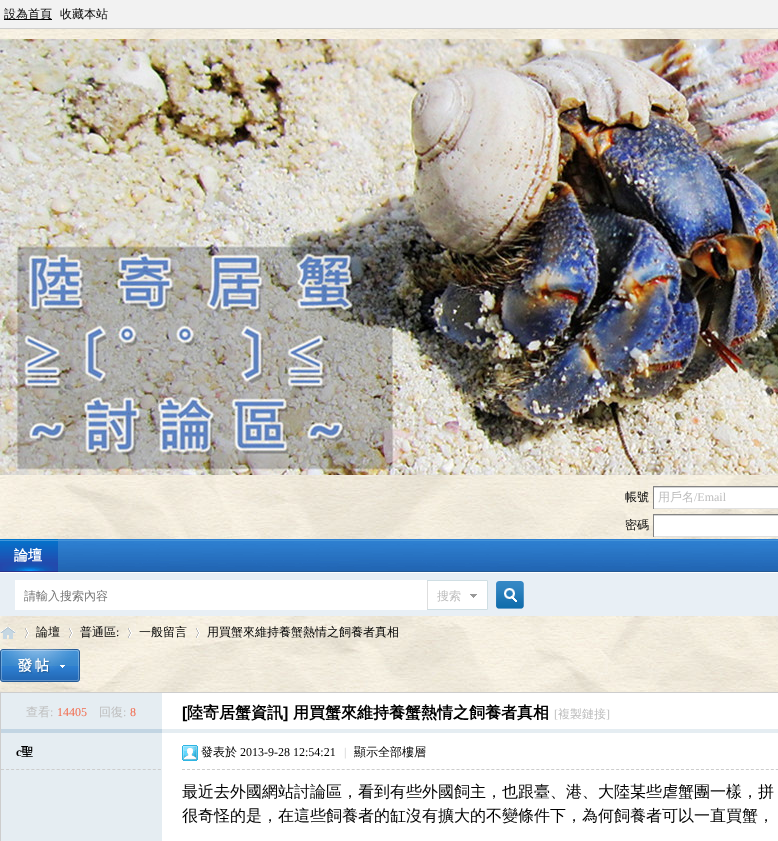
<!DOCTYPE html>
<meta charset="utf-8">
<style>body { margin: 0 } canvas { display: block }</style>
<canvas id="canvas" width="778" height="841"></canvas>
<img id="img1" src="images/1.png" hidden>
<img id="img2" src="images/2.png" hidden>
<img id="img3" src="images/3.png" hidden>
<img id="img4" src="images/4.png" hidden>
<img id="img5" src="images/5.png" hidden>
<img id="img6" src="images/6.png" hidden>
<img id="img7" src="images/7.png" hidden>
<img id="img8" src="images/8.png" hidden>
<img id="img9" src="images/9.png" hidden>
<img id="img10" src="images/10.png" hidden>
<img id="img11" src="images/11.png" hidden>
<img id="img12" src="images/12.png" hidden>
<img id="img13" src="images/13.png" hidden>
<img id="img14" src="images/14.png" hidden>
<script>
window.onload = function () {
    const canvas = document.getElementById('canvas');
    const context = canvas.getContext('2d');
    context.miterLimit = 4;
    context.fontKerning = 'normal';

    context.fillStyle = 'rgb(255, 255, 255)';
    context.fillRect(0, 0, 778, 841);
    context.drawImage(document.getElementById('img1'), 0, 616, 778, 76);
    context.fillStyle = 'rgb(242, 242, 242)';
    context.fillRect(0, 0, 778, 28);
    context.fillStyle = 'rgb(205, 205, 205)';
    context.fillRect(0, 28, 778, 1);
    context.fillStyle = 'rgb(0, 0, 0)';
    context.fillRect(4, 19, 48, 1);
    context.drawImage(document.getElementById('img2'), 0, 29, 778, 510);
    context.drawImage(document.getElementById('img3'), 0, 39, 778, 436);
    context.fillStyle = 'rgb(255, 255, 255)';
    context.fillRect(654, 488, 124, 20);
    context.fillStyle = 'rgb(212, 212, 212)';
    context.fillRect(653, 487, 125, 1);
    context.fillStyle = 'rgb(132, 132, 132)';
    context.fillRect(653, 486, 125, 1);
    context.fillStyle = 'rgb(224, 224, 224)';
    context.fillRect(653, 508, 125, 1);
    context.fillStyle = 'rgb(132, 132, 132)';
    context.fillRect(653, 486, 1, 23);
    context.fillStyle = 'rgb(255, 255, 255)';
    context.fillRect(654, 516, 124, 20);
    context.fillStyle = 'rgb(212, 212, 212)';
    context.fillRect(653, 515, 125, 1);
    context.fillStyle = 'rgb(132, 132, 132)';
    context.fillRect(653, 514, 125, 1);
    context.fillStyle = 'rgb(224, 224, 224)';
    context.fillRect(653, 536, 125, 1);
    context.fillStyle = 'rgb(132, 132, 132)';
    context.fillRect(653, 514, 1, 23);
    context.drawImage(document.getElementById('img4'), 58, 539, 720, 33);
    context.drawImage(document.getElementById('img5'), 0, 539, 58, 33);
    context.fillStyle = 'rgb(232, 239, 245)';
    context.fillRect(0, 573, 778, 43);
    context.fillStyle = 'rgb(255, 255, 255)';
    context.fillRect(15, 580, 412, 30);
    context.drawImage(document.getElementById('img6'), 496, 581, 28, 28);
    context.drawImage(document.getElementById('img7'), 427, 580, 61, 30);
    context.drawImage(document.getElementById('img8'), 0, 627, 16, 12);
    context.drawImage(document.getElementById('img9'), 25, 628, 4, 10);
    context.drawImage(document.getElementById('img10'), 69, 628, 4, 10);
    context.drawImage(document.getElementById('img11'), 128, 628, 4, 10);
    context.drawImage(document.getElementById('img12'), 196, 628, 4, 10);
    context.drawImage(document.getElementById('img13'), 0, 649, 80, 33);
    context.strokeStyle = 'rgb(205, 205, 205)';
    context.strokeRect(0.5, 692.5, 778, 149);
    context.fillStyle = 'rgb(229, 237, 242)';
    context.fillRect(1, 693, 161, 36);
    context.fillStyle = 'rgb(194, 213, 227)';
    context.fillRect(1, 729, 161, 4);
    context.fillStyle = 'rgb(229, 237, 242)';
    context.fillRect(162, 729, 616, 4);
    context.fillRect(1, 733, 161, 108);
    context.beginPath();
    context.moveTo(1, 769.5);
    context.lineTo(161, 769.5);
    context.setLineDash([3, 2.06]);
    context.stroke();
    context.beginPath();
    context.moveTo(182, 769.5);
    context.lineTo(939, 769.5);
    context.setLineDash([3, 1.99]);
    context.stroke();
    context.drawImage(document.getElementById('img14'), 182, 745, 16, 16);
    context.font = '500 12px WenQuanYi Zen Hei';
    context.fillStyle = 'rgb(0, 0, 0)';
    context.fillText('設為首頁', 4, 18);
    context.fillText('收藏本站', 60, 18);
    context.fillText('帳號', 625, 501);
    context.fillStyle = 'rgb(190, 190, 190)';
    context.fillText('用戶名', 658, 501);
    context.font = '12px Liberation Serif';
    context.fillText('/Email', 694, 501);
    context.font = '500 12px WenQuanYi Zen Hei';
    context.fillStyle = 'rgb(0, 0, 0)';
    context.fillText('密碼', 625, 529);
    context.font = 'bold 14px WenQuanYi Zen Hei';
    context.fillStyle = 'rgb(255, 255, 255)';
    context.fillText('論壇', 14, 560);
    context.font = '500 12px WenQuanYi Zen Hei';
    context.fillStyle = 'rgb(117, 117, 117)';
    context.fillText('請輸入搜索內容', 24, 600);
    context.fillStyle = 'rgb(190, 190, 190)';
    context.fillText('搜索', 437, 600);
    context.fillStyle = 'rgb(0, 0, 0)';
    context.fillText('論壇', 36, 636);
    context.fillText('普通區', 80, 636);
    context.font = '12px Liberation Serif';
    context.fillText(':', 116, 636);
    context.font = '500 12px WenQuanYi Zen Hei';
    context.fillText('一般留言', 139, 636);
    context.fillText('用買蟹來維持養蟹熱情之飼養者真相', 207, 636);
    context.fillStyle = 'rgb(190, 190, 190)';
    context.fillText('查看', 26, 716);
    context.font = '12px Liberation Serif';
    context.fillText(':', 50, 716);
    context.fillStyle = 'rgb(242, 108, 79)';
    context.fillText('14405', 57, 716);
    context.font = '500 12px WenQuanYi Zen Hei';
    context.fillStyle = 'rgb(190, 190, 190)';
    context.fillText('回復', 99, 716);
    context.font = '12px Liberation Serif';
    context.fillText(':', 123, 716);
    context.fillStyle = 'rgb(242, 108, 79)';
    context.fillText('8', 130, 716);
    context.font = 'bold 16px Liberation Sans';
    context.fillStyle = 'rgb(0, 0, 0)';
    context.fillText('[', 182, 718);
    context.font = 'bold 16px WenQuanYi Zen Hei';
    context.fillText('陸寄居蟹資訊', 187, 718);
    context.font = 'bold 16px Liberation Sans';
    context.fillText(']', 283, 718);
    context.font = 'bold 16px WenQuanYi Zen Hei';
    context.fillText('用買蟹來維持養蟹熱情之飼養者真相', 293, 718);
    context.font = '12px Liberation Serif';
    context.fillStyle = 'rgb(190, 190, 190)';
    context.fillText('[', 554, 718);
    context.font = '500 12px WenQuanYi Zen Hei';
    context.fillText('複製鏈接', 558, 718);
    context.font = '12px Liberation Serif';
    context.fillText(']', 606, 718);
    context.font = 'bold 12px Liberation Serif';
    context.fillStyle = 'rgb(0, 0, 0)';
    context.fillText('c', 16, 756);
    context.font = 'bold 12px WenQuanYi Zen Hei';
    context.fillText('聖', 21, 756);
    context.font = '500 12px WenQuanYi Zen Hei';
    context.fillText('發表於', 201, 756);
    context.font = '12px Liberation Serif';
    context.fillText('2013-9-28 12:54:21', 240, 756);
    context.fillStyle = 'rgb(204, 204, 204)';
    context.fillText('|', 344, 756);
    context.font = '500 12px WenQuanYi Zen Hei';
    context.fillStyle = 'rgb(0, 0, 0)';
    context.fillText('顯示全部樓層', 354, 756);
    context.font = '500 16px WenQuanYi Zen Hei';
    context.fillText('最近去外國網站討論區，看到有些外國飼主，也跟臺、港、大陸某些虐蟹團一樣，拼', 182, 797);
    context.fillText('很奇怪的是，在這些飼養者的缸沒有擴大的不變條件下，為何飼養者可以一直買蟹，', 182, 821);
};
</script>
